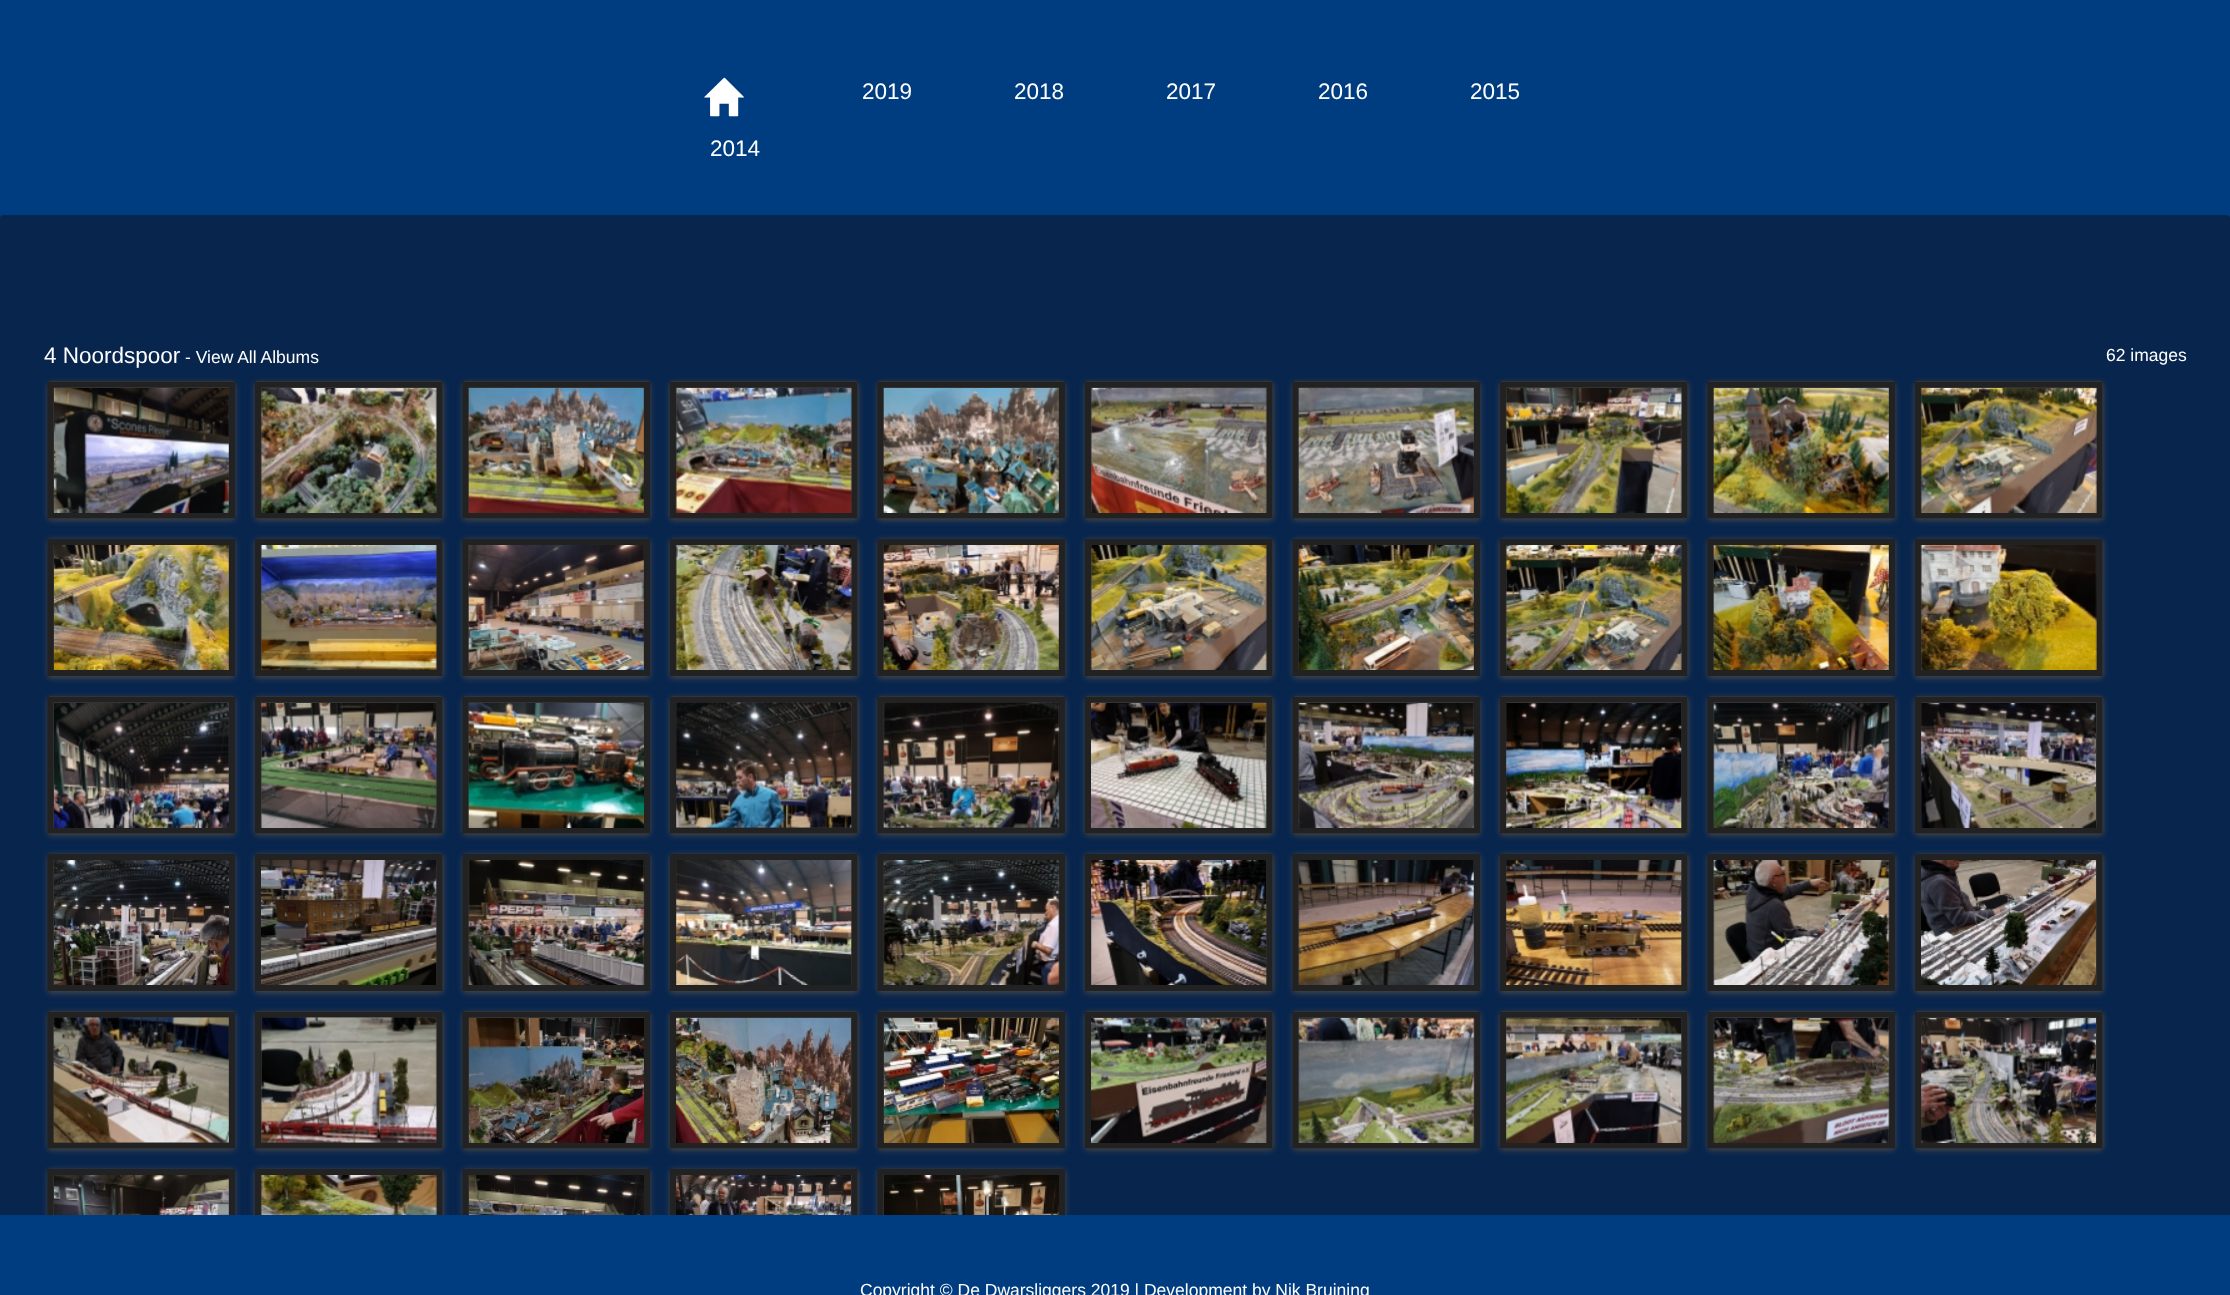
<!DOCTYPE html>
<meta charset="utf-8">
<style>body { margin: 0 } canvas { display: block }</style>
<canvas id="canvas" width="2230" height="1295"></canvas>
<img id="img1" src="images/1.png" hidden>
<img id="img2" src="images/2.png" hidden>
<img id="img3" src="images/3.png" hidden>
<img id="img4" src="images/4.png" hidden>
<img id="img5" src="images/5.png" hidden>
<img id="img6" src="images/6.png" hidden>
<img id="img7" src="images/7.png" hidden>
<img id="img8" src="images/8.png" hidden>
<img id="img9" src="images/9.png" hidden>
<img id="img10" src="images/10.png" hidden>
<img id="img11" src="images/11.png" hidden>
<img id="img12" src="images/12.png" hidden>
<img id="img13" src="images/13.png" hidden>
<img id="img14" src="images/14.png" hidden>
<img id="img15" src="images/15.png" hidden>
<img id="img16" src="images/16.png" hidden>
<img id="img17" src="images/17.png" hidden>
<img id="img18" src="images/18.png" hidden>
<img id="img19" src="images/19.png" hidden>
<img id="img20" src="images/20.png" hidden>
<img id="img21" src="images/21.png" hidden>
<img id="img22" src="images/22.png" hidden>
<img id="img23" src="images/23.png" hidden>
<img id="img24" src="images/24.png" hidden>
<img id="img25" src="images/25.png" hidden>
<img id="img26" src="images/26.png" hidden>
<img id="img27" src="images/27.png" hidden>
<img id="img28" src="images/28.png" hidden>
<img id="img29" src="images/29.png" hidden>
<img id="img30" src="images/30.png" hidden>
<img id="img31" src="images/31.png" hidden>
<img id="img32" src="images/32.png" hidden>
<img id="img33" src="images/33.png" hidden>
<img id="img34" src="images/34.png" hidden>
<img id="img35" src="images/35.png" hidden>
<img id="img36" src="images/36.png" hidden>
<img id="img37" src="images/37.png" hidden>
<img id="img38" src="images/38.png" hidden>
<img id="img39" src="images/39.png" hidden>
<img id="img40" src="images/40.png" hidden>
<img id="img41" src="images/41.png" hidden>
<img id="img42" src="images/42.png" hidden>
<img id="img43" src="images/43.png" hidden>
<img id="img44" src="images/44.png" hidden>
<img id="img45" src="images/45.png" hidden>
<img id="img46" src="images/46.png" hidden>
<img id="img47" src="images/47.png" hidden>
<img id="img48" src="images/48.png" hidden>
<img id="img49" src="images/49.png" hidden>
<img id="img50" src="images/50.png" hidden>
<img id="img51" src="images/51.png" hidden>
<img id="img52" src="images/52.png" hidden>
<img id="img53" src="images/53.png" hidden>
<img id="img54" src="images/54.png" hidden>
<img id="img55" src="images/55.png" hidden>
<img id="img56" src="images/56.png" hidden>
<script>
window.onload = function () {
    const canvas = document.getElementById('canvas');
    const context = canvas.getContext('2d');
    context.miterLimit = 4;
    context.fontKerning = 'normal';

    context.fillStyle = 'rgb(0, 61, 128)';
    context.fillRect(0, 0, 2230, 1295);
    context.drawImage(document.getElementById('img1'), 704, 77, 40, 40);
    context.fillStyle = 'rgb(8, 37, 77)';
    context.beginPath();
    context.roundRect(0, 215, 2230, 1000, [4, 4, 0, 0]);
    context.fill();
    context.fillStyle = 'rgb(74, 74, 74)';
    context.filter = 'blur(3px)';
    context.beginPath();
    context.roundRect(48, 383, 187, 137, 2.5);
    context.fill();
    context.filter = 'none';
    context.fillStyle = 'rgb(68, 68, 68)';
    context.beginPath();
    context.roundRect(48, 381, 187, 138, 2.5);
    context.fill();
    context.beginPath();
    context.moveTo(50.5, 384.5);
    context.lineTo(232, 384.5);
    context.lineTo(232, 515.5);
    context.lineTo(50.5, 515.5);
    context.closePath();
    context.strokeStyle = 'rgb(34, 34, 34)';
    context.lineWidth = 6.2;
    context.stroke();
    context.drawImage(document.getElementById('img2'), 54, 388, 175, 125);
    context.fillStyle = 'rgb(74, 74, 74)';
    context.filter = 'blur(3px)';
    context.beginPath();
    context.roundRect(255, 383, 188, 137, 2.5);
    context.fill();
    context.filter = 'none';
    context.fillStyle = 'rgb(68, 68, 68)';
    context.beginPath();
    context.roundRect(255, 381, 188, 138, 2.5);
    context.fill();
    context.beginPath();
    context.moveTo(258, 384.5);
    context.lineTo(439.5, 384.5);
    context.lineTo(439.5, 515.5);
    context.lineTo(258, 515.5);
    context.closePath();
    context.stroke();
    context.drawImage(document.getElementById('img3'), 260, 388, 177, 125);
    context.fillStyle = 'rgb(74, 74, 74)';
    context.filter = 'blur(3px)';
    context.beginPath();
    context.roundRect(463, 383, 187, 137, 2.5);
    context.fill();
    context.filter = 'none';
    context.fillStyle = 'rgb(68, 68, 68)';
    context.beginPath();
    context.roundRect(463, 381, 187, 138, 2.5);
    context.fill();
    context.beginPath();
    context.moveTo(465.5, 384.5);
    context.lineTo(647, 384.5);
    context.lineTo(647, 515.5);
    context.lineTo(465.5, 515.5);
    context.closePath();
    context.stroke();
    context.drawImage(document.getElementById('img4'), 468, 388, 176, 125);
    context.fillStyle = 'rgb(74, 74, 74)';
    context.filter = 'blur(3px)';
    context.beginPath();
    context.roundRect(670, 383, 188, 137, 2.5);
    context.fill();
    context.filter = 'none';
    context.fillStyle = 'rgb(68, 68, 68)';
    context.beginPath();
    context.roundRect(670, 381, 188, 138, 2.5);
    context.fill();
    context.beginPath();
    context.moveTo(673, 384.5);
    context.lineTo(854.5, 384.5);
    context.lineTo(854.5, 515.5);
    context.lineTo(673, 515.5);
    context.closePath();
    context.stroke();
    context.drawImage(document.getElementById('img5'), 675, 388, 177, 125);
    context.fillStyle = 'rgb(74, 74, 74)';
    context.filter = 'blur(3px)';
    context.beginPath();
    context.roundRect(878, 383, 187, 137, 2.5);
    context.fill();
    context.filter = 'none';
    context.fillStyle = 'rgb(68, 68, 68)';
    context.beginPath();
    context.roundRect(878, 381, 187, 138, 2.5);
    context.fill();
    context.beginPath();
    context.moveTo(880.5, 384.5);
    context.lineTo(1062, 384.5);
    context.lineTo(1062, 515.5);
    context.lineTo(880.5, 515.5);
    context.closePath();
    context.stroke();
    context.drawImage(document.getElementById('img6'), 883, 388, 176, 125);
    context.fillStyle = 'rgb(74, 74, 74)';
    context.filter = 'blur(3px)';
    context.beginPath();
    context.roundRect(1085, 383, 188, 137, 2.5);
    context.fill();
    context.filter = 'none';
    context.fillStyle = 'rgb(68, 68, 68)';
    context.beginPath();
    context.roundRect(1085, 381, 188, 138, 2.5);
    context.fill();
    context.beginPath();
    context.moveTo(1088, 384.5);
    context.lineTo(1269.5, 384.5);
    context.lineTo(1269.5, 515.5);
    context.lineTo(1088, 515.5);
    context.closePath();
    context.stroke();
    context.drawImage(document.getElementById('img7'), 1090, 388, 177, 125);
    context.fillStyle = 'rgb(74, 74, 74)';
    context.filter = 'blur(3px)';
    context.beginPath();
    context.roundRect(1293, 383, 187, 137, 2.5);
    context.fill();
    context.filter = 'none';
    context.fillStyle = 'rgb(68, 68, 68)';
    context.beginPath();
    context.roundRect(1293, 381, 187, 138, 2.5);
    context.fill();
    context.beginPath();
    context.moveTo(1295.5, 384.5);
    context.lineTo(1477, 384.5);
    context.lineTo(1477, 515.5);
    context.lineTo(1295.5, 515.5);
    context.closePath();
    context.stroke();
    context.drawImage(document.getElementById('img8'), 1298, 388, 176, 125);
    context.fillStyle = 'rgb(74, 74, 74)';
    context.filter = 'blur(3px)';
    context.beginPath();
    context.roundRect(1500, 383, 188, 137, 2.5);
    context.fill();
    context.filter = 'none';
    context.fillStyle = 'rgb(68, 68, 68)';
    context.beginPath();
    context.roundRect(1500, 381, 188, 138, 2.5);
    context.fill();
    context.beginPath();
    context.moveTo(1503, 384.5);
    context.lineTo(1684.5, 384.5);
    context.lineTo(1684.5, 515.5);
    context.lineTo(1503, 515.5);
    context.closePath();
    context.stroke();
    context.drawImage(document.getElementById('img9'), 1505, 388, 177, 125);
    context.fillStyle = 'rgb(74, 74, 74)';
    context.filter = 'blur(3px)';
    context.beginPath();
    context.roundRect(1708, 383, 187, 137, 2.5);
    context.fill();
    context.filter = 'none';
    context.fillStyle = 'rgb(68, 68, 68)';
    context.beginPath();
    context.roundRect(1708, 381, 187, 138, 2.5);
    context.fill();
    context.beginPath();
    context.moveTo(1710.5, 384.5);
    context.lineTo(1892, 384.5);
    context.lineTo(1892, 515.5);
    context.lineTo(1710.5, 515.5);
    context.closePath();
    context.stroke();
    context.drawImage(document.getElementById('img10'), 1713, 388, 176, 125);
    context.fillStyle = 'rgb(74, 74, 74)';
    context.filter = 'blur(3px)';
    context.beginPath();
    context.roundRect(1915, 383, 188, 137, 2.5);
    context.fill();
    context.filter = 'none';
    context.fillStyle = 'rgb(68, 68, 68)';
    context.beginPath();
    context.roundRect(1915, 381, 188, 138, 2.5);
    context.fill();
    context.beginPath();
    context.moveTo(1918, 384.5);
    context.lineTo(2099.5, 384.5);
    context.lineTo(2099.5, 515.5);
    context.lineTo(1918, 515.5);
    context.closePath();
    context.stroke();
    context.drawImage(document.getElementById('img11'), 1920, 388, 177, 125);
    context.fillStyle = 'rgb(74, 74, 74)';
    context.filter = 'blur(3px)';
    context.beginPath();
    context.roundRect(48, 540, 187, 138, 2.5);
    context.fill();
    context.filter = 'none';
    context.fillStyle = 'rgb(68, 68, 68)';
    context.fillRect(53, 545, 176, 125);
    context.beginPath();
    context.moveTo(50.5, 542);
    context.lineTo(232, 542);
    context.lineTo(232, 673);
    context.lineTo(50.5, 673);
    context.closePath();
    context.stroke();
    context.drawImage(document.getElementById('img12'), 54, 545, 175, 125);
    context.fillStyle = 'rgb(74, 74, 74)';
    context.filter = 'blur(3px)';
    context.beginPath();
    context.roundRect(255, 540, 188, 138, 2.5);
    context.fill();
    context.filter = 'none';
    context.fillStyle = 'rgb(68, 68, 68)';
    context.beginPath();
    context.roundRect(255, 539, 188, 137, 2.5);
    context.fill();
    context.beginPath();
    context.moveTo(258, 542);
    context.lineTo(439.5, 542);
    context.lineTo(439.5, 673);
    context.lineTo(258, 673);
    context.closePath();
    context.stroke();
    context.drawImage(document.getElementById('img13'), 260, 545, 177, 125);
    context.fillStyle = 'rgb(74, 74, 74)';
    context.filter = 'blur(3px)';
    context.beginPath();
    context.roundRect(463, 540, 187, 138, 2.5);
    context.fill();
    context.filter = 'none';
    context.beginPath();
    context.moveTo(465.5, 542);
    context.lineTo(647, 542);
    context.lineTo(647, 673);
    context.lineTo(465.5, 673);
    context.closePath();
    context.stroke();
    context.drawImage(document.getElementById('img14'), 468, 545, 176, 125);
    context.filter = 'blur(3px)';
    context.beginPath();
    context.roundRect(670, 540, 188, 138, 2.5);
    context.fill();
    context.filter = 'none';
    context.fillStyle = 'rgb(68, 68, 68)';
    context.beginPath();
    context.roundRect(670, 539, 188, 137, 2.5);
    context.fill();
    context.beginPath();
    context.moveTo(673, 542);
    context.lineTo(854.5, 542);
    context.lineTo(854.5, 673);
    context.lineTo(673, 673);
    context.closePath();
    context.stroke();
    context.drawImage(document.getElementById('img15'), 675, 545, 177, 125);
    context.fillStyle = 'rgb(74, 74, 74)';
    context.filter = 'blur(3px)';
    context.beginPath();
    context.roundRect(878, 540, 187, 138, 2.5);
    context.fill();
    context.filter = 'none';
    context.beginPath();
    context.moveTo(880.5, 542);
    context.lineTo(1062, 542);
    context.lineTo(1062, 673);
    context.lineTo(880.5, 673);
    context.closePath();
    context.stroke();
    context.drawImage(document.getElementById('img16'), 883, 545, 176, 125);
    context.filter = 'blur(3px)';
    context.beginPath();
    context.roundRect(1085, 540, 188, 138, 2.5);
    context.fill();
    context.filter = 'none';
    context.fillStyle = 'rgb(68, 68, 68)';
    context.beginPath();
    context.roundRect(1085, 539, 188, 137, 2.5);
    context.fill();
    context.beginPath();
    context.moveTo(1088, 542);
    context.lineTo(1269.5, 542);
    context.lineTo(1269.5, 673);
    context.lineTo(1088, 673);
    context.closePath();
    context.stroke();
    context.drawImage(document.getElementById('img17'), 1090, 545, 177, 125);
    context.fillStyle = 'rgb(74, 74, 74)';
    context.filter = 'blur(3px)';
    context.beginPath();
    context.roundRect(1293, 540, 187, 138, 2.5);
    context.fill();
    context.filter = 'none';
    context.beginPath();
    context.moveTo(1295.5, 542);
    context.lineTo(1477, 542);
    context.lineTo(1477, 673);
    context.lineTo(1295.5, 673);
    context.closePath();
    context.stroke();
    context.drawImage(document.getElementById('img18'), 1298, 545, 176, 125);
    context.filter = 'blur(3px)';
    context.beginPath();
    context.roundRect(1500, 540, 188, 138, 2.5);
    context.fill();
    context.filter = 'none';
    context.fillStyle = 'rgb(68, 68, 68)';
    context.beginPath();
    context.roundRect(1500, 539, 188, 137, 2.5);
    context.fill();
    context.beginPath();
    context.moveTo(1503, 542);
    context.lineTo(1684.5, 542);
    context.lineTo(1684.5, 673);
    context.lineTo(1503, 673);
    context.closePath();
    context.stroke();
    context.drawImage(document.getElementById('img19'), 1505, 545, 177, 125);
    context.fillStyle = 'rgb(74, 74, 74)';
    context.filter = 'blur(3px)';
    context.beginPath();
    context.roundRect(1708, 540, 187, 138, 2.5);
    context.fill();
    context.filter = 'none';
    context.beginPath();
    context.moveTo(1710.5, 542);
    context.lineTo(1892, 542);
    context.lineTo(1892, 673);
    context.lineTo(1710.5, 673);
    context.closePath();
    context.stroke();
    context.drawImage(document.getElementById('img20'), 1713, 545, 176, 125);
    context.filter = 'blur(3px)';
    context.beginPath();
    context.roundRect(1915, 540, 188, 138, 2.5);
    context.fill();
    context.filter = 'none';
    context.fillStyle = 'rgb(68, 68, 68)';
    context.beginPath();
    context.roundRect(1915, 539, 188, 137, 2.5);
    context.fill();
    context.beginPath();
    context.moveTo(1918, 542);
    context.lineTo(2099.5, 542);
    context.lineTo(2099.5, 673);
    context.lineTo(1918, 673);
    context.closePath();
    context.stroke();
    context.drawImage(document.getElementById('img21'), 1920, 545, 177, 125);
    context.fillStyle = 'rgb(74, 74, 74)';
    context.filter = 'blur(3px)';
    context.beginPath();
    context.roundRect(48, 698, 187, 137, 2.5);
    context.fill();
    context.filter = 'none';
    context.fillStyle = 'rgb(68, 68, 68)';
    context.beginPath();
    context.roundRect(48, 696, 187, 138, 2.5);
    context.fill();
    context.beginPath();
    context.moveTo(50.5, 699.5);
    context.lineTo(232, 699.5);
    context.lineTo(232, 830.5);
    context.lineTo(50.5, 830.5);
    context.closePath();
    context.stroke();
    context.drawImage(document.getElementById('img22'), 54, 703, 175, 125);
    context.fillStyle = 'rgb(74, 74, 74)';
    context.filter = 'blur(3px)';
    context.beginPath();
    context.roundRect(255, 698, 188, 137, 2.5);
    context.fill();
    context.filter = 'none';
    context.fillStyle = 'rgb(68, 68, 68)';
    context.beginPath();
    context.roundRect(255, 696, 188, 138, 2.5);
    context.fill();
    context.beginPath();
    context.moveTo(258, 699.5);
    context.lineTo(439.5, 699.5);
    context.lineTo(439.5, 830.5);
    context.lineTo(258, 830.5);
    context.closePath();
    context.stroke();
    context.drawImage(document.getElementById('img23'), 260, 703, 177, 125);
    context.fillStyle = 'rgb(74, 74, 74)';
    context.filter = 'blur(3px)';
    context.beginPath();
    context.roundRect(463, 698, 187, 137, 2.5);
    context.fill();
    context.filter = 'none';
    context.fillStyle = 'rgb(68, 68, 68)';
    context.beginPath();
    context.roundRect(463, 696, 187, 138, 2.5);
    context.fill();
    context.beginPath();
    context.moveTo(465.5, 699.5);
    context.lineTo(647, 699.5);
    context.lineTo(647, 830.5);
    context.lineTo(465.5, 830.5);
    context.closePath();
    context.stroke();
    context.drawImage(document.getElementById('img24'), 468, 703, 176, 125);
    context.fillStyle = 'rgb(74, 74, 74)';
    context.filter = 'blur(3px)';
    context.beginPath();
    context.roundRect(670, 698, 188, 137, 2.5);
    context.fill();
    context.filter = 'none';
    context.fillStyle = 'rgb(68, 68, 68)';
    context.beginPath();
    context.roundRect(670, 696, 188, 138, 2.5);
    context.fill();
    context.beginPath();
    context.moveTo(673, 699.5);
    context.lineTo(854.5, 699.5);
    context.lineTo(854.5, 830.5);
    context.lineTo(673, 830.5);
    context.closePath();
    context.stroke();
    context.drawImage(document.getElementById('img25'), 676, 702, 176, 126);
    context.fillStyle = 'rgb(74, 74, 74)';
    context.filter = 'blur(3px)';
    context.beginPath();
    context.roundRect(878, 698, 187, 137, 2.5);
    context.fill();
    context.filter = 'none';
    context.fillStyle = 'rgb(68, 68, 68)';
    context.beginPath();
    context.roundRect(878, 696, 187, 138, 2.5);
    context.fill();
    context.beginPath();
    context.moveTo(880.5, 699.5);
    context.lineTo(1062, 699.5);
    context.lineTo(1062, 830.5);
    context.lineTo(880.5, 830.5);
    context.closePath();
    context.stroke();
    context.drawImage(document.getElementById('img26'), 883, 702, 177, 126);
    context.fillStyle = 'rgb(74, 74, 74)';
    context.filter = 'blur(3px)';
    context.beginPath();
    context.roundRect(1085, 698, 188, 137, 2.5);
    context.fill();
    context.filter = 'none';
    context.fillStyle = 'rgb(68, 68, 68)';
    context.beginPath();
    context.roundRect(1085, 696, 188, 138, 2.5);
    context.fill();
    context.beginPath();
    context.moveTo(1088, 699.5);
    context.lineTo(1269.5, 699.5);
    context.lineTo(1269.5, 830.5);
    context.lineTo(1088, 830.5);
    context.closePath();
    context.stroke();
    context.drawImage(document.getElementById('img27'), 1091, 703, 176, 125);
    context.fillStyle = 'rgb(74, 74, 74)';
    context.filter = 'blur(3px)';
    context.beginPath();
    context.roundRect(1293, 698, 187, 137, 2.5);
    context.fill();
    context.filter = 'none';
    context.fillStyle = 'rgb(68, 68, 68)';
    context.beginPath();
    context.roundRect(1293, 696, 187, 138, 2.5);
    context.fill();
    context.beginPath();
    context.moveTo(1295.5, 699.5);
    context.lineTo(1477, 699.5);
    context.lineTo(1477, 830.5);
    context.lineTo(1295.5, 830.5);
    context.closePath();
    context.stroke();
    context.drawImage(document.getElementById('img28'), 1298, 703, 177, 125);
    context.fillStyle = 'rgb(74, 74, 74)';
    context.filter = 'blur(3px)';
    context.beginPath();
    context.roundRect(1500, 698, 188, 137, 2.5);
    context.fill();
    context.filter = 'none';
    context.fillStyle = 'rgb(68, 68, 68)';
    context.beginPath();
    context.roundRect(1500, 696, 188, 138, 2.5);
    context.fill();
    context.beginPath();
    context.moveTo(1503, 699.5);
    context.lineTo(1684.5, 699.5);
    context.lineTo(1684.5, 830.5);
    context.lineTo(1503, 830.5);
    context.closePath();
    context.stroke();
    context.drawImage(document.getElementById('img29'), 1506, 703, 176, 125);
    context.fillStyle = 'rgb(74, 74, 74)';
    context.filter = 'blur(3px)';
    context.beginPath();
    context.roundRect(1708, 698, 187, 137, 2.5);
    context.fill();
    context.filter = 'none';
    context.fillStyle = 'rgb(68, 68, 68)';
    context.beginPath();
    context.roundRect(1708, 696, 187, 138, 2.5);
    context.fill();
    context.beginPath();
    context.moveTo(1710.5, 699.5);
    context.lineTo(1892, 699.5);
    context.lineTo(1892, 830.5);
    context.lineTo(1710.5, 830.5);
    context.closePath();
    context.stroke();
    context.drawImage(document.getElementById('img30'), 1713, 703, 177, 125);
    context.fillStyle = 'rgb(74, 74, 74)';
    context.filter = 'blur(3px)';
    context.beginPath();
    context.roundRect(1915, 698, 188, 137, 2.5);
    context.fill();
    context.filter = 'none';
    context.fillStyle = 'rgb(68, 68, 68)';
    context.beginPath();
    context.roundRect(1915, 696, 188, 138, 2.5);
    context.fill();
    context.beginPath();
    context.moveTo(1918, 699.5);
    context.lineTo(2099.5, 699.5);
    context.lineTo(2099.5, 830.5);
    context.lineTo(1918, 830.5);
    context.closePath();
    context.stroke();
    context.drawImage(document.getElementById('img31'), 1921, 703, 175, 125);
    context.fillStyle = 'rgb(74, 74, 74)';
    context.filter = 'blur(3px)';
    context.beginPath();
    context.roundRect(48, 855, 187, 138, 2.5);
    context.fill();
    context.filter = 'none';
    context.fillStyle = 'rgb(68, 68, 68)';
    context.fillRect(53, 860, 1, 125);
    context.beginPath();
    context.moveTo(50.5, 857);
    context.lineTo(232, 857);
    context.lineTo(232, 988);
    context.lineTo(50.5, 988);
    context.closePath();
    context.stroke();
    context.drawImage(document.getElementById('img32'), 54, 860, 175, 125);
    context.fillStyle = 'rgb(74, 74, 74)';
    context.filter = 'blur(3px)';
    context.beginPath();
    context.roundRect(255, 855, 188, 138, 2.5);
    context.fill();
    context.filter = 'none';
    context.fillStyle = 'rgb(68, 68, 68)';
    context.beginPath();
    context.roundRect(255, 854, 188, 137, 2.5);
    context.fill();
    context.beginPath();
    context.moveTo(258, 857);
    context.lineTo(439.5, 857);
    context.lineTo(439.5, 988);
    context.lineTo(258, 988);
    context.closePath();
    context.stroke();
    context.drawImage(document.getElementById('img33'), 261, 860, 176, 125);
    context.fillStyle = 'rgb(74, 74, 74)';
    context.filter = 'blur(3px)';
    context.beginPath();
    context.roundRect(463, 855, 187, 138, 2.5);
    context.fill();
    context.filter = 'none';
    context.fillStyle = 'rgb(68, 68, 68)';
    context.fillRect(468, 860, 176, 125);
    context.beginPath();
    context.moveTo(465.5, 857);
    context.lineTo(647, 857);
    context.lineTo(647, 988);
    context.lineTo(465.5, 988);
    context.closePath();
    context.stroke();
    context.drawImage(document.getElementById('img34'), 468, 860, 177, 125);
    context.fillStyle = 'rgb(74, 74, 74)';
    context.filter = 'blur(3px)';
    context.beginPath();
    context.roundRect(670, 855, 188, 138, 2.5);
    context.fill();
    context.filter = 'none';
    context.fillStyle = 'rgb(68, 68, 68)';
    context.beginPath();
    context.roundRect(670, 854, 188, 137, 2.5);
    context.fill();
    context.beginPath();
    context.moveTo(673, 857);
    context.lineTo(854.5, 857);
    context.lineTo(854.5, 988);
    context.lineTo(673, 988);
    context.closePath();
    context.stroke();
    context.drawImage(document.getElementById('img35'), 676, 860, 176, 125);
    context.fillStyle = 'rgb(74, 74, 74)';
    context.filter = 'blur(3px)';
    context.beginPath();
    context.roundRect(878, 855, 187, 138, 2.5);
    context.fill();
    context.filter = 'none';
    context.fillStyle = 'rgb(68, 68, 68)';
    context.fillRect(883, 860, 176, 125);
    context.beginPath();
    context.moveTo(880.5, 857);
    context.lineTo(1062, 857);
    context.lineTo(1062, 988);
    context.lineTo(880.5, 988);
    context.closePath();
    context.stroke();
    context.drawImage(document.getElementById('img36'), 883, 860, 177, 125);
    context.fillStyle = 'rgb(74, 74, 74)';
    context.filter = 'blur(3px)';
    context.beginPath();
    context.roundRect(1085, 855, 188, 138, 2.5);
    context.fill();
    context.filter = 'none';
    context.fillStyle = 'rgb(68, 68, 68)';
    context.beginPath();
    context.roundRect(1085, 854, 188, 137, 2.5);
    context.fill();
    context.beginPath();
    context.moveTo(1088, 857);
    context.lineTo(1269.5, 857);
    context.lineTo(1269.5, 988);
    context.lineTo(1088, 988);
    context.closePath();
    context.stroke();
    context.drawImage(document.getElementById('img37'), 1091, 860, 176, 125);
    context.fillStyle = 'rgb(74, 74, 74)';
    context.filter = 'blur(3px)';
    context.beginPath();
    context.roundRect(1293, 855, 187, 138, 2.5);
    context.fill();
    context.filter = 'none';
    context.fillStyle = 'rgb(68, 68, 68)';
    context.fillRect(1298, 860, 176, 125);
    context.beginPath();
    context.moveTo(1295.5, 857);
    context.lineTo(1477, 857);
    context.lineTo(1477, 988);
    context.lineTo(1295.5, 988);
    context.closePath();
    context.stroke();
    context.drawImage(document.getElementById('img38'), 1298, 860, 176, 125);
    context.fillStyle = 'rgb(74, 74, 74)';
    context.filter = 'blur(3px)';
    context.beginPath();
    context.roundRect(1500, 855, 188, 138, 2.5);
    context.fill();
    context.filter = 'none';
    context.fillStyle = 'rgb(68, 68, 68)';
    context.beginPath();
    context.roundRect(1500, 854, 188, 137, 2.5);
    context.fill();
    context.beginPath();
    context.moveTo(1503, 857);
    context.lineTo(1684.5, 857);
    context.lineTo(1684.5, 988);
    context.lineTo(1503, 988);
    context.closePath();
    context.stroke();
    context.drawImage(document.getElementById('img39'), 1506, 860, 176, 125);
    context.fillStyle = 'rgb(74, 74, 74)';
    context.filter = 'blur(3px)';
    context.beginPath();
    context.roundRect(1708, 855, 187, 138, 2.5);
    context.fill();
    context.filter = 'none';
    context.fillStyle = 'rgb(68, 68, 68)';
    context.fillRect(1713, 860, 176, 125);
    context.beginPath();
    context.moveTo(1710.5, 857);
    context.lineTo(1892, 857);
    context.lineTo(1892, 988);
    context.lineTo(1710.5, 988);
    context.closePath();
    context.stroke();
    context.drawImage(document.getElementById('img40'), 1713, 860, 177, 125);
    context.fillStyle = 'rgb(74, 74, 74)';
    context.filter = 'blur(3px)';
    context.beginPath();
    context.roundRect(1915, 855, 188, 138, 2.5);
    context.fill();
    context.filter = 'none';
    context.fillStyle = 'rgb(68, 68, 68)';
    context.beginPath();
    context.roundRect(1915, 854, 188, 137, 2.5);
    context.fill();
    context.beginPath();
    context.moveTo(1918, 857);
    context.lineTo(2099.5, 857);
    context.lineTo(2099.5, 988);
    context.lineTo(1918, 988);
    context.closePath();
    context.stroke();
    context.drawImage(document.getElementById('img41'), 1921, 860, 175, 125);
    context.fillStyle = 'rgb(74, 74, 74)';
    context.filter = 'blur(3px)';
    context.beginPath();
    context.roundRect(48, 1013, 187, 137, 2.5);
    context.fill();
    context.filter = 'none';
    context.fillStyle = 'rgb(68, 68, 68)';
    context.beginPath();
    context.roundRect(48, 1011, 187, 138, 2.5);
    context.fill();
    context.beginPath();
    context.moveTo(50.5, 1014.5);
    context.lineTo(232, 1014.5);
    context.lineTo(232, 1145.5);
    context.lineTo(50.5, 1145.5);
    context.closePath();
    context.stroke();
    context.drawImage(document.getElementById('img42'), 53, 1017, 176, 126);
    context.fillStyle = 'rgb(74, 74, 74)';
    context.filter = 'blur(3px)';
    context.beginPath();
    context.roundRect(255, 1013, 188, 137, 2.5);
    context.fill();
    context.filter = 'none';
    context.fillStyle = 'rgb(68, 68, 68)';
    context.beginPath();
    context.roundRect(255, 1011, 188, 138, 2.5);
    context.fill();
    context.beginPath();
    context.moveTo(258, 1014.5);
    context.lineTo(439.5, 1014.5);
    context.lineTo(439.5, 1145.5);
    context.lineTo(258, 1145.5);
    context.closePath();
    context.stroke();
    context.drawImage(document.getElementById('img43'), 260, 1017, 177, 126);
    context.fillStyle = 'rgb(74, 74, 74)';
    context.filter = 'blur(3px)';
    context.beginPath();
    context.roundRect(463, 1013, 187, 137, 2.5);
    context.fill();
    context.filter = 'none';
    context.fillStyle = 'rgb(68, 68, 68)';
    context.beginPath();
    context.roundRect(463, 1011, 187, 138, 2.5);
    context.fill();
    context.beginPath();
    context.moveTo(465.5, 1014.5);
    context.lineTo(647, 1014.5);
    context.lineTo(647, 1145.5);
    context.lineTo(465.5, 1145.5);
    context.closePath();
    context.stroke();
    context.drawImage(document.getElementById('img44'), 469, 1018, 175, 125);
    context.fillStyle = 'rgb(74, 74, 74)';
    context.filter = 'blur(3px)';
    context.beginPath();
    context.roundRect(670, 1013, 188, 137, 2.5);
    context.fill();
    context.filter = 'none';
    context.fillStyle = 'rgb(68, 68, 68)';
    context.beginPath();
    context.roundRect(670, 1011, 188, 138, 2.5);
    context.fill();
    context.beginPath();
    context.moveTo(673, 1014.5);
    context.lineTo(854.5, 1014.5);
    context.lineTo(854.5, 1145.5);
    context.lineTo(673, 1145.5);
    context.closePath();
    context.stroke();
    context.drawImage(document.getElementById('img45'), 676, 1018, 175, 125);
    context.fillStyle = 'rgb(74, 74, 74)';
    context.filter = 'blur(3px)';
    context.beginPath();
    context.roundRect(878, 1013, 187, 137, 2.5);
    context.fill();
    context.filter = 'none';
    context.fillStyle = 'rgb(68, 68, 68)';
    context.beginPath();
    context.roundRect(878, 1011, 187, 138, 2.5);
    context.fill();
    context.beginPath();
    context.moveTo(880.5, 1014.5);
    context.lineTo(1062, 1014.5);
    context.lineTo(1062, 1145.5);
    context.lineTo(880.5, 1145.5);
    context.closePath();
    context.stroke();
    context.drawImage(document.getElementById('img46'), 884, 1018, 175, 125);
    context.fillStyle = 'rgb(74, 74, 74)';
    context.filter = 'blur(3px)';
    context.beginPath();
    context.roundRect(1085, 1013, 188, 137, 2.5);
    context.fill();
    context.filter = 'none';
    context.fillStyle = 'rgb(68, 68, 68)';
    context.beginPath();
    context.roundRect(1085, 1011, 188, 138, 2.5);
    context.fill();
    context.beginPath();
    context.moveTo(1088, 1014.5);
    context.lineTo(1269.5, 1014.5);
    context.lineTo(1269.5, 1145.5);
    context.lineTo(1088, 1145.5);
    context.closePath();
    context.stroke();
    context.drawImage(document.getElementById('img47'), 1091, 1018, 176, 125);
    context.fillStyle = 'rgb(74, 74, 74)';
    context.filter = 'blur(3px)';
    context.beginPath();
    context.roundRect(1293, 1013, 187, 137, 2.5);
    context.fill();
    context.filter = 'none';
    context.fillStyle = 'rgb(68, 68, 68)';
    context.beginPath();
    context.roundRect(1293, 1011, 187, 138, 2.5);
    context.fill();
    context.beginPath();
    context.moveTo(1295.5, 1014.5);
    context.lineTo(1477, 1014.5);
    context.lineTo(1477, 1145.5);
    context.lineTo(1295.5, 1145.5);
    context.closePath();
    context.stroke();
    context.drawImage(document.getElementById('img48'), 1298, 1018, 177, 125);
    context.fillStyle = 'rgb(74, 74, 74)';
    context.filter = 'blur(3px)';
    context.beginPath();
    context.roundRect(1500, 1013, 188, 137, 2.5);
    context.fill();
    context.filter = 'none';
    context.fillStyle = 'rgb(68, 68, 68)';
    context.beginPath();
    context.roundRect(1500, 1011, 188, 138, 2.5);
    context.fill();
    context.beginPath();
    context.moveTo(1503, 1014.5);
    context.lineTo(1684.5, 1014.5);
    context.lineTo(1684.5, 1145.5);
    context.lineTo(1503, 1145.5);
    context.closePath();
    context.stroke();
    context.drawImage(document.getElementById('img49'), 1506, 1018, 176, 125);
    context.fillStyle = 'rgb(74, 74, 74)';
    context.filter = 'blur(3px)';
    context.beginPath();
    context.roundRect(1708, 1013, 187, 137, 2.5);
    context.fill();
    context.filter = 'none';
    context.fillStyle = 'rgb(68, 68, 68)';
    context.beginPath();
    context.roundRect(1708, 1011, 187, 138, 2.5);
    context.fill();
    context.beginPath();
    context.moveTo(1710.5, 1014.5);
    context.lineTo(1892, 1014.5);
    context.lineTo(1892, 1145.5);
    context.lineTo(1710.5, 1145.5);
    context.closePath();
    context.stroke();
    context.drawImage(document.getElementById('img50'), 1713, 1018, 177, 125);
    context.fillStyle = 'rgb(74, 74, 74)';
    context.filter = 'blur(3px)';
    context.beginPath();
    context.roundRect(1915, 1013, 188, 137, 2.5);
    context.fill();
    context.filter = 'none';
    context.fillStyle = 'rgb(68, 68, 68)';
    context.beginPath();
    context.roundRect(1915, 1011, 188, 138, 2.5);
    context.fill();
    context.beginPath();
    context.moveTo(1918, 1014.5);
    context.lineTo(2099.5, 1014.5);
    context.lineTo(2099.5, 1145.5);
    context.lineTo(1918, 1145.5);
    context.closePath();
    context.stroke();
    context.drawImage(document.getElementById('img51'), 1921, 1018, 175, 125);
    context.save();
    context.beginPath();
    context.rect(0, 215, 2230, 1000);
    context.clip();
    context.fillStyle = 'rgb(74, 74, 74)';
    context.filter = 'blur(3px)';
    context.beginPath();
    context.roundRect(48, 1170, 187, 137, 2.5);
    context.fill();
    context.filter = 'none';
    context.restore();
    context.fillRect(53, 1175, 176, 40);
    context.save();
    context.beginPath();
    context.rect(0, 215, 2230, 1000);
    context.clip();
    context.beginPath();
    context.moveTo(50.5, 1172);
    context.lineTo(232, 1172);
    context.lineTo(232, 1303);
    context.lineTo(50.5, 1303);
    context.closePath();
    context.stroke();
    context.restore();
    context.drawImage(document.getElementById('img52'), 54, 1175, 175, 40);
    context.save();
    context.beginPath();
    context.rect(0, 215, 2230, 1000);
    context.clip();
    context.fillStyle = 'rgb(74, 74, 74)';
    context.filter = 'blur(3px)';
    context.beginPath();
    context.roundRect(255, 1170, 188, 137, 2.5);
    context.fill();
    context.filter = 'none';
    context.restore();
    context.beginPath();
    context.roundRect(255, 1169, 188, 46, [2.5, 2.5, 0, 0]);
    context.fill();
    context.save();
    context.beginPath();
    context.rect(0, 215, 2230, 1000);
    context.clip();
    context.beginPath();
    context.moveTo(258, 1172);
    context.lineTo(439.5, 1172);
    context.lineTo(439.5, 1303);
    context.lineTo(258, 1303);
    context.closePath();
    context.stroke();
    context.restore();
    context.drawImage(document.getElementById('img53'), 260, 1175, 177, 40);
    context.save();
    context.beginPath();
    context.rect(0, 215, 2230, 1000);
    context.clip();
    context.fillStyle = 'rgb(74, 74, 74)';
    context.filter = 'blur(3px)';
    context.beginPath();
    context.roundRect(463, 1170, 187, 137, 2.5);
    context.fill();
    context.filter = 'none';
    context.restore();
    context.fillRect(468, 1175, 1, 40);
    context.save();
    context.beginPath();
    context.rect(0, 215, 2230, 1000);
    context.clip();
    context.beginPath();
    context.moveTo(465.5, 1172);
    context.lineTo(647, 1172);
    context.lineTo(647, 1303);
    context.lineTo(465.5, 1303);
    context.closePath();
    context.stroke();
    context.restore();
    context.drawImage(document.getElementById('img54'), 469, 1175, 175, 40);
    context.save();
    context.beginPath();
    context.rect(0, 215, 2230, 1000);
    context.clip();
    context.fillStyle = 'rgb(74, 74, 74)';
    context.filter = 'blur(3px)';
    context.beginPath();
    context.roundRect(670, 1170, 188, 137, 2.5);
    context.fill();
    context.filter = 'none';
    context.restore();
    context.beginPath();
    context.roundRect(670, 1169, 188, 46, [2.5, 2.5, 0, 0]);
    context.fill();
    context.save();
    context.beginPath();
    context.rect(0, 215, 2230, 1000);
    context.clip();
    context.beginPath();
    context.moveTo(673, 1172);
    context.lineTo(854.5, 1172);
    context.lineTo(854.5, 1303);
    context.lineTo(673, 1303);
    context.closePath();
    context.stroke();
    context.restore();
    context.drawImage(document.getElementById('img55'), 676, 1175, 175, 40);
    context.save();
    context.beginPath();
    context.rect(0, 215, 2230, 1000);
    context.clip();
    context.fillStyle = 'rgb(74, 74, 74)';
    context.filter = 'blur(3px)';
    context.beginPath();
    context.roundRect(878, 1170, 187, 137, 2.5);
    context.fill();
    context.filter = 'none';
    context.restore();
    context.fillRect(883, 1175, 1, 40);
    context.save();
    context.beginPath();
    context.rect(0, 215, 2230, 1000);
    context.clip();
    context.beginPath();
    context.moveTo(880.5, 1172);
    context.lineTo(1062, 1172);
    context.lineTo(1062, 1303);
    context.lineTo(880.5, 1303);
    context.closePath();
    context.stroke();
    context.restore();
    context.drawImage(document.getElementById('img56'), 884, 1175, 175, 40);
    context.font = '22.5px Liberation Sans';
    context.fillStyle = 'rgb(255, 255, 255)';
    context.fillText('2019', 862, 99);
    context.fillText('2018', 1014, 99);
    context.fillText('2017', 1166, 99);
    context.fillText('2016', 1318, 99);
    context.fillText('2015', 1470, 99);
    context.fillText('2014', 710, 156);
    context.fillText('4 Noordspoor', 44, 363);
    context.font = '17.5px Liberation Sans';
    context.fillText('- View All Albums', 185, 363);
    context.fillText('62 images', 2106, 361);
    context.fillText('Copyright © De Dwarsliggers 2019 | Development by Nik Bruining', 860, 1296);
};
</script>
